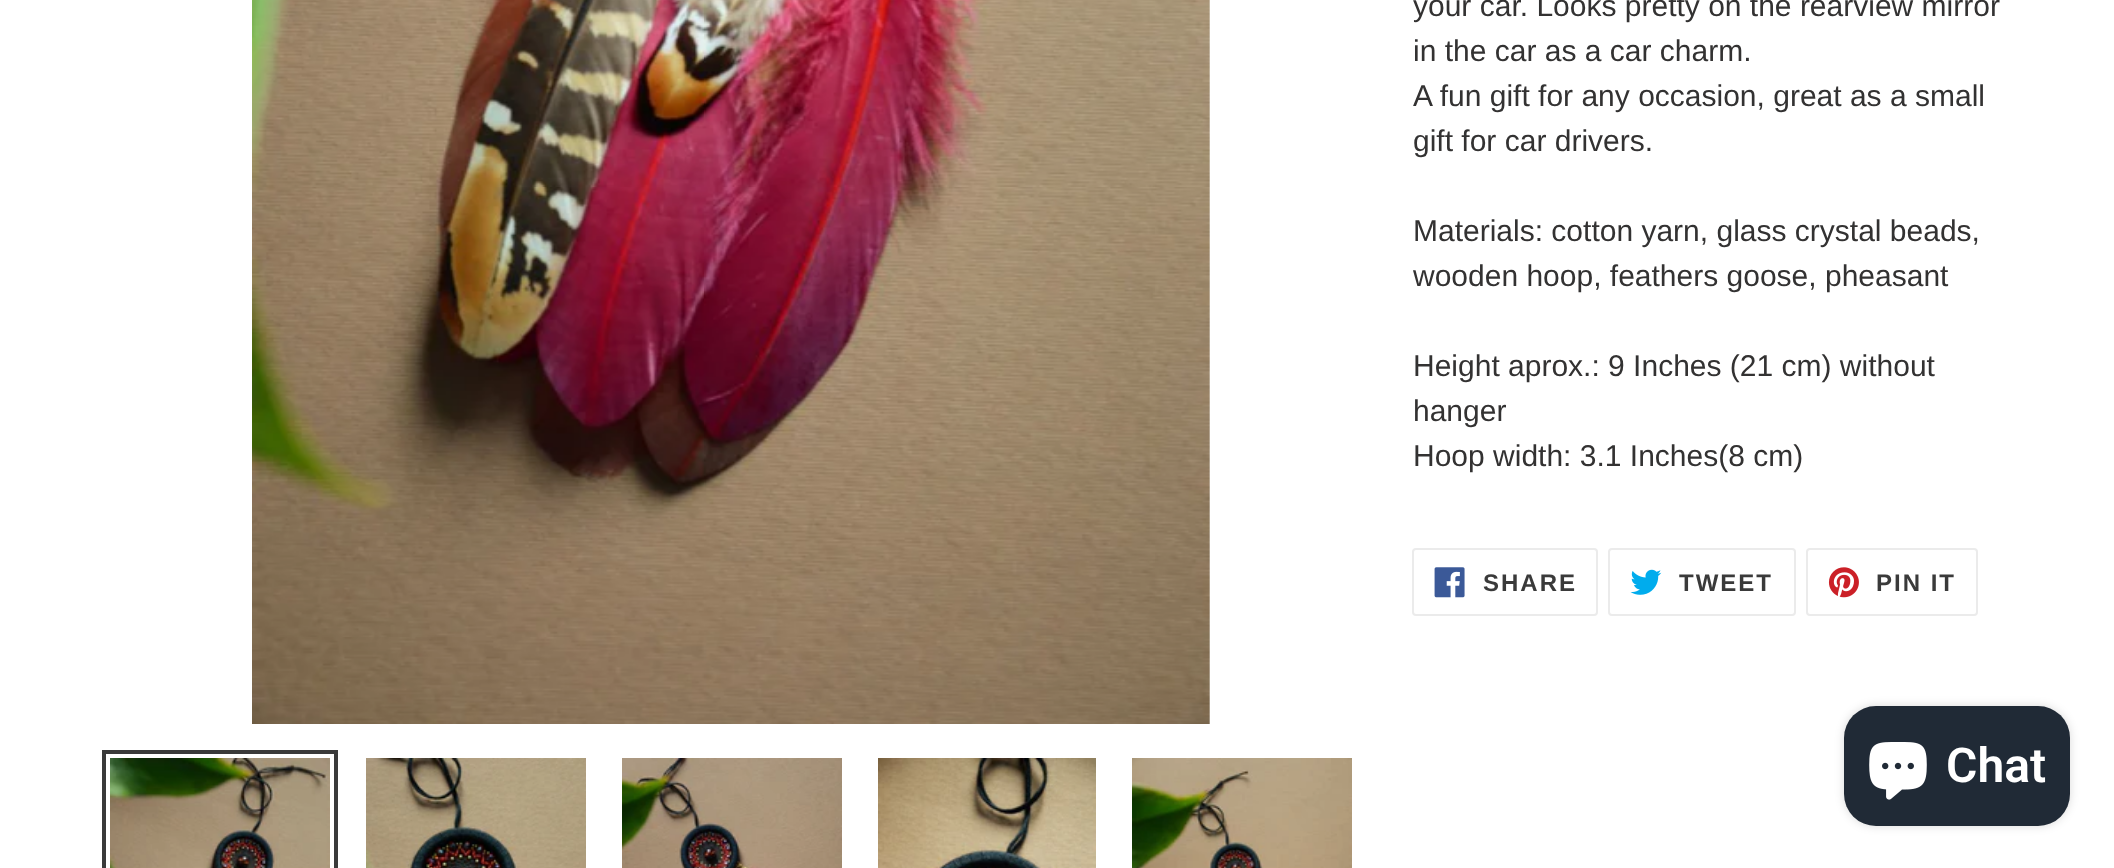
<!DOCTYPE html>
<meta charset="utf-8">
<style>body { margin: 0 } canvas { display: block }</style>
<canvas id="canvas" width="2114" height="868"></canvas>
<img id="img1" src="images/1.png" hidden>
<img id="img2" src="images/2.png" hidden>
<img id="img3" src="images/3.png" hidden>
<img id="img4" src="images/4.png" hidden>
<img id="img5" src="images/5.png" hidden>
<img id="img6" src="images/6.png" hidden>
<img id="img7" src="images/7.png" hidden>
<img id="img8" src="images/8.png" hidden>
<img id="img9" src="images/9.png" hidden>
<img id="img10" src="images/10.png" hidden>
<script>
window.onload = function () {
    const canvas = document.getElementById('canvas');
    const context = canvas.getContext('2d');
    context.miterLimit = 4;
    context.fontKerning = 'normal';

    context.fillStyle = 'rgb(255, 255, 255)';
    context.fillRect(0, 0, 2114, 868);
    context.drawImage(document.getElementById('img1'), 252, 0, 958, 724);
    context.strokeStyle = 'rgb(58, 58, 58)';
    context.lineWidth = 4;
    context.strokeRect(104, 752, 232, 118);
    context.drawImage(document.getElementById('img2'), 110, 758, 220, 110);
    context.drawImage(document.getElementById('img3'), 366, 758, 220, 110);
    context.drawImage(document.getElementById('img4'), 622, 758, 220, 110);
    context.drawImage(document.getElementById('img5'), 878, 758, 218, 110);
    context.drawImage(document.getElementById('img6'), 1132, 758, 220, 110);
    context.beginPath();
    context.roundRect(1413, 549, 184, 66, 3);
    context.strokeStyle = 'rgb(235, 235, 235)';
    context.lineWidth = 2;
    context.stroke();
    context.drawImage(document.getElementById('img7'), 1434, 567, 31, 31);
    context.beginPath();
    context.roundRect(1609, 549, 186, 66, 3);
    context.stroke();
    context.drawImage(document.getElementById('img8'), 1630, 569, 32, 26);
    context.beginPath();
    context.roundRect(1807, 549, 170, 66, 3);
    context.stroke();
    context.drawImage(document.getElementById('img9'), 1828, 567, 31, 31);
    context.fillStyle = 'rgba(0, 0, 0, 0.15)';
    context.filter = 'blur(5px)';
    context.beginPath();
    context.roundRect(1844, 706, 226, 120, 32);
    context.fill();
    context.filter = 'none';
    context.fillStyle = 'rgb(32, 42, 54)';
    context.beginPath();
    context.roundRect(1844, 706, 226, 120, 32);
    context.fill();
    context.drawImage(document.getElementById('img10'), 1869, 742, 58, 58);
    context.font = '30px Liberation Sans';
    context.fillStyle = 'rgb(51, 50, 50)';
    context.fillText('your car. Looks pretty on the rearview mirror', 1413, 16);
    context.fillText('in the car as a car charm.', 1413, 61);
    context.fillText('A fun gift for any occasion, great as a small', 1413, 106);
    context.fillText('gift for car drivers.', 1413, 151);
    context.fillText('Materials: cotton yarn, glass crystal beads,', 1413, 241);
    context.fillText('wooden hoop, feathers goose, pheasant', 1413, 286);
    context.fillText('Height aprox.: 9 Inches (21 cm) without', 1413, 376);
    context.fillText('hanger', 1413, 421);
    context.fillText('Hoop width: 3.1 Inches(8 cm)', 1413, 466);
    context.letterSpacing = '2px';
    context.font = 'bold 24px Liberation Sans';
    context.fillStyle = 'rgb(58, 58, 58)';
    context.fillText('SHARE', 1483, 591);
    context.fillText('TWEET', 1679, 591);
    context.fillText('PIN IT', 1876, 591);
    context.letterSpacing = '0px';
    context.font = '600 48px Roboto';
    context.fillStyle = 'rgb(255, 255, 255)';
    context.fillText('Chat', 1946, 782);
};
</script>
